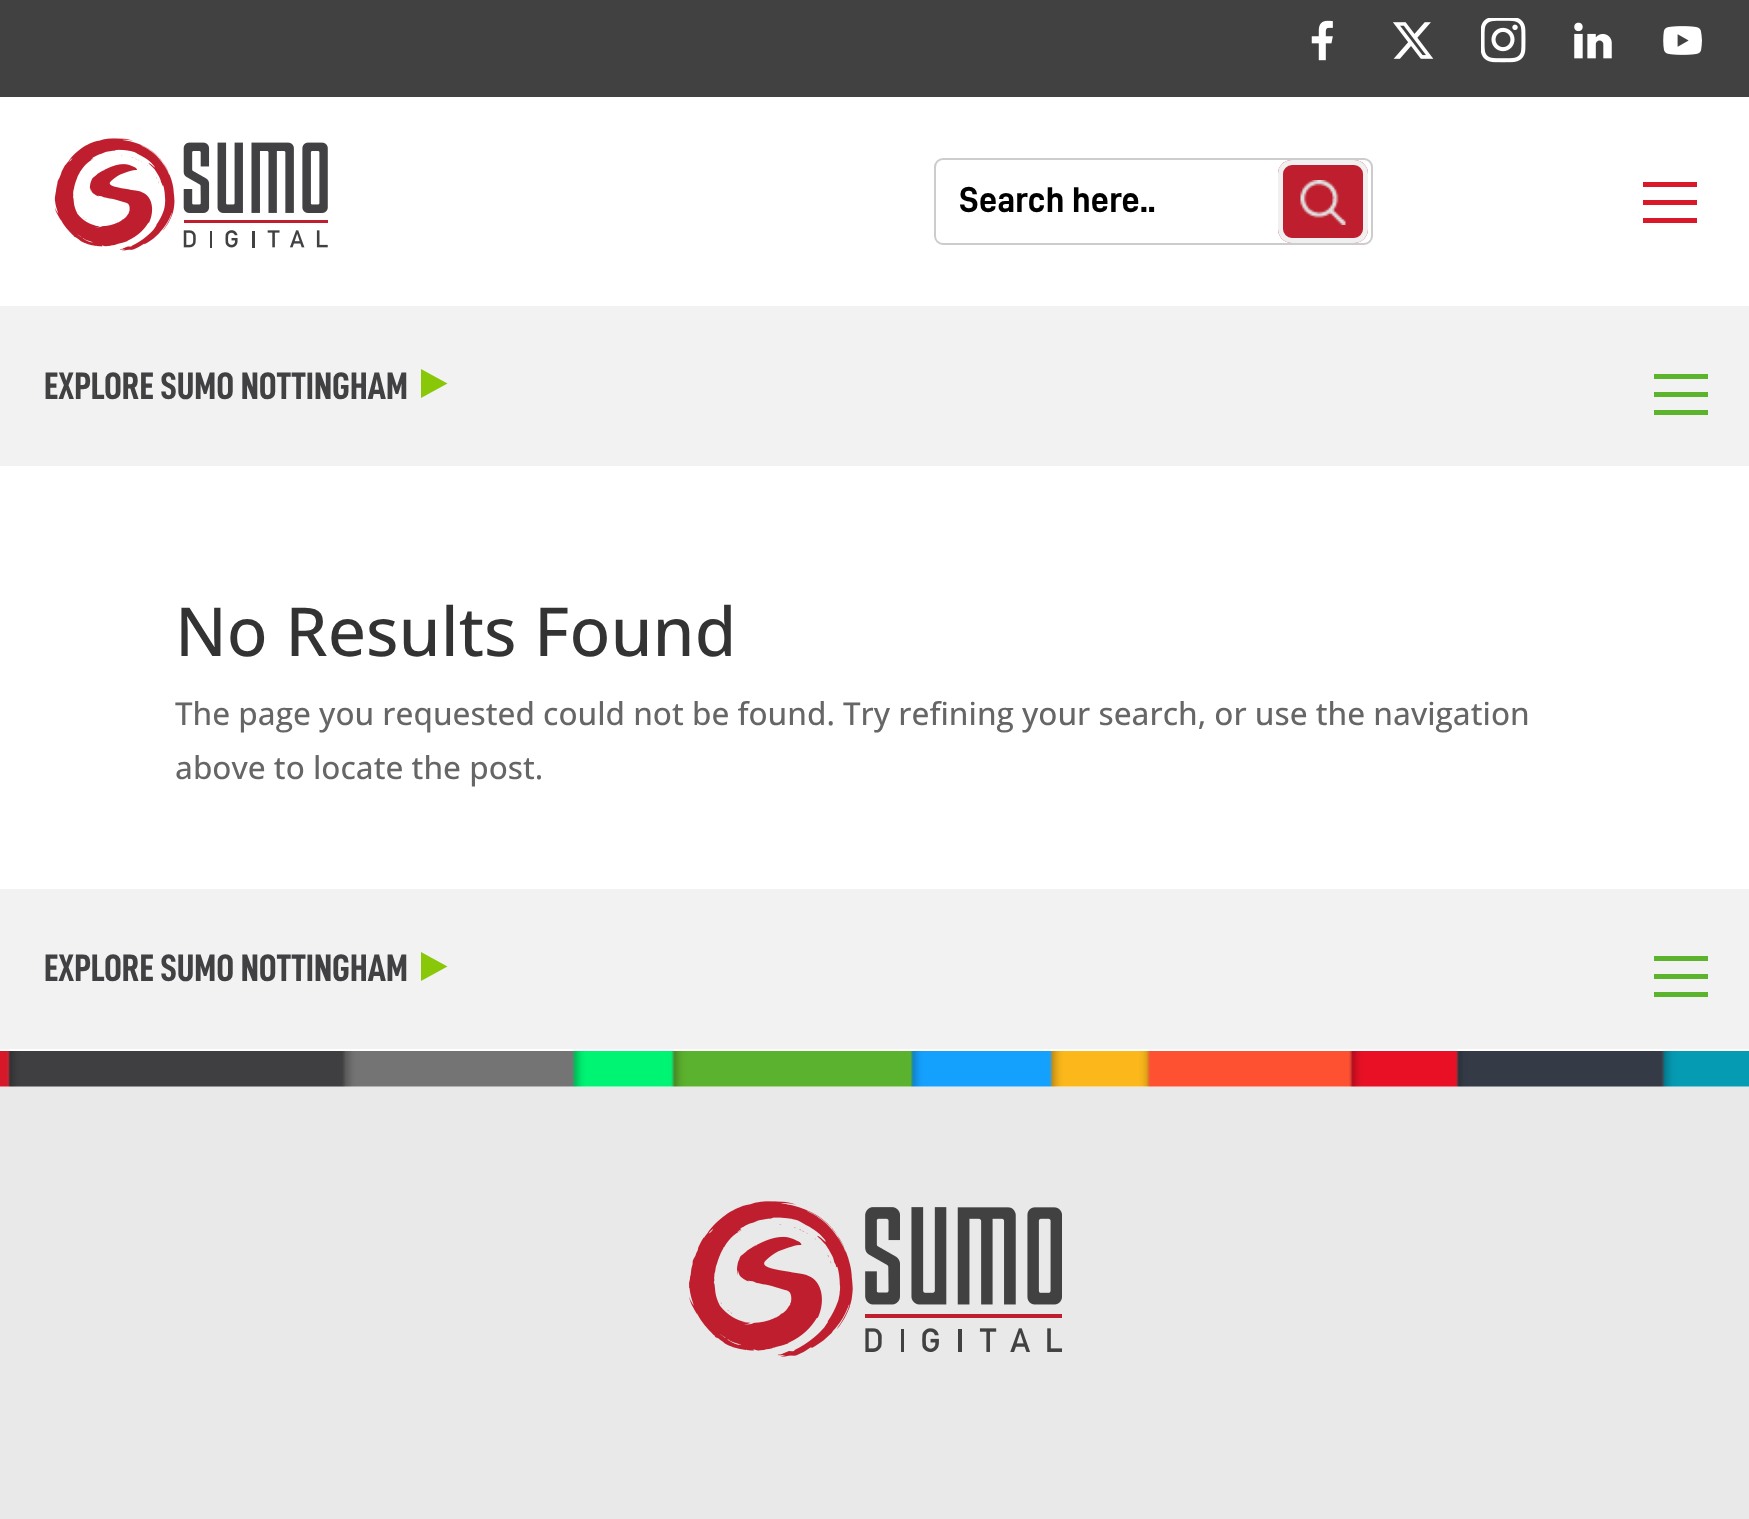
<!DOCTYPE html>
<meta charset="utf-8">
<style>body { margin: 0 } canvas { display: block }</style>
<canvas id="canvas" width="1749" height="1519"></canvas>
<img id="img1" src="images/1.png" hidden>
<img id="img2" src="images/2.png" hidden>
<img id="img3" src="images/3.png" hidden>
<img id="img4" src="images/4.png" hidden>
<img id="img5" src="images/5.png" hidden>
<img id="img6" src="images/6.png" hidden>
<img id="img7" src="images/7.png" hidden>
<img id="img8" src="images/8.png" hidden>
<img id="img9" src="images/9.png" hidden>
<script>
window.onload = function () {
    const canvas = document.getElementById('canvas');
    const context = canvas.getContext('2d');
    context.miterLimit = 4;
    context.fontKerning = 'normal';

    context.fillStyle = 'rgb(255, 255, 255)';
    context.fillRect(0, 0, 1749, 1519);
    context.fillStyle = 'rgb(66, 65, 66)';
    context.fillRect(0, 0, 1749, 97);
    context.drawImage(document.getElementById('img1'), 1311, 20, 22, 41);
    context.drawImage(document.getElementById('img2'), 1393, 22, 41, 37);
    context.drawImage(document.getElementById('img3'), 1481, 18, 45, 45);
    context.drawImage(document.getElementById('img4'), 1574, 22, 38, 37);
    context.drawImage(document.getElementById('img5'), 1663, 26, 39, 29);
    context.drawImage(document.getElementById('img6'), 54, 138, 274, 113);
    context.beginPath();
    context.roundRect(935, 159, 437, 85, 8);
    context.strokeStyle = 'rgb(204, 204, 204)';
    context.lineWidth = 2;
    context.stroke();
    context.fillStyle = 'rgb(190, 30, 45)';
    context.beginPath();
    context.roundRect(1278, 160, 90, 83, 14);
    context.fill();
    context.drawImage(document.getElementById('img7'), 1300, 180, 46, 45);
    context.beginPath();
    context.roundRect(1280.5, 162.5, 85, 78, 11.5);
    context.strokeStyle = 'rgb(240, 240, 240)';
    context.lineWidth = 5;
    context.stroke();
    context.fillStyle = 'rgb(217, 24, 41)';
    context.fillRect(1643, 200, 54, 5);
    context.fillRect(1643, 182, 54, 5);
    context.fillRect(1643, 218, 54, 5);
    context.fillStyle = 'rgb(242, 242, 242)';
    context.fillRect(0, 306, 1749, 160);
    context.fillStyle = 'rgb(137, 200, 8)';
    context.beginPath();
    context.moveTo(447.5, 383.5);
    context.lineTo(421, 398);
    context.lineTo(421, 369);
    context.closePath();
    context.fill();
    context.fillStyle = 'rgb(92, 180, 45)';
    context.fillRect(1654, 392, 54, 5);
    context.fillRect(1654, 374, 54, 5);
    context.fillRect(1654, 410, 54, 5);
    context.fillStyle = 'rgb(242, 242, 242)';
    context.fillRect(0, 889, 1749, 160);
    context.fillStyle = 'rgb(137, 200, 8)';
    context.beginPath();
    context.moveTo(447.5, 966.5);
    context.lineTo(421, 981);
    context.lineTo(421, 952);
    context.closePath();
    context.fill();
    context.fillStyle = 'rgb(92, 180, 45)';
    context.fillRect(1654, 974, 54, 5);
    context.fillRect(1654, 956, 54, 5);
    context.fillRect(1654, 992, 54, 5);
    context.drawImage(document.getElementById('img8'), 0, 1051, 1749, 36);
    context.fillStyle = 'rgb(233, 233, 233)';
    context.fillRect(0, 1087, 1749, 432);
    context.drawImage(document.getElementById('img9'), 689, 1201, 373, 156);
    context.font = 'bold 36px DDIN';
    context.fillStyle = 'rgb(0, 0, 0)';
    context.fillText('Search here..', 959, 212);
    context.font = 'bold 38.25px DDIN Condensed';
    context.fillStyle = 'rgb(65, 64, 66)';
    context.fillText('EXPLORE SUMO NOTTINGHAM', 44, 399);
    context.font = '500 67.5px Open Sans';
    context.fillStyle = 'rgb(51, 51, 51)';
    context.fillText('No Results Found', 175, 656);
    context.font = '500 31.5px Open Sans';
    context.fillStyle = 'rgb(102, 102, 102)';
    context.fillText('The page you requested could not be found. Try refining your search, or use the navigation', 175, 725);
    context.fillText('above to locate the post.', 175, 779);
    context.font = 'bold 38.25px DDIN Condensed';
    context.fillStyle = 'rgb(65, 64, 66)';
    context.fillText('EXPLORE SUMO NOTTINGHAM', 44, 981);
};
</script>
